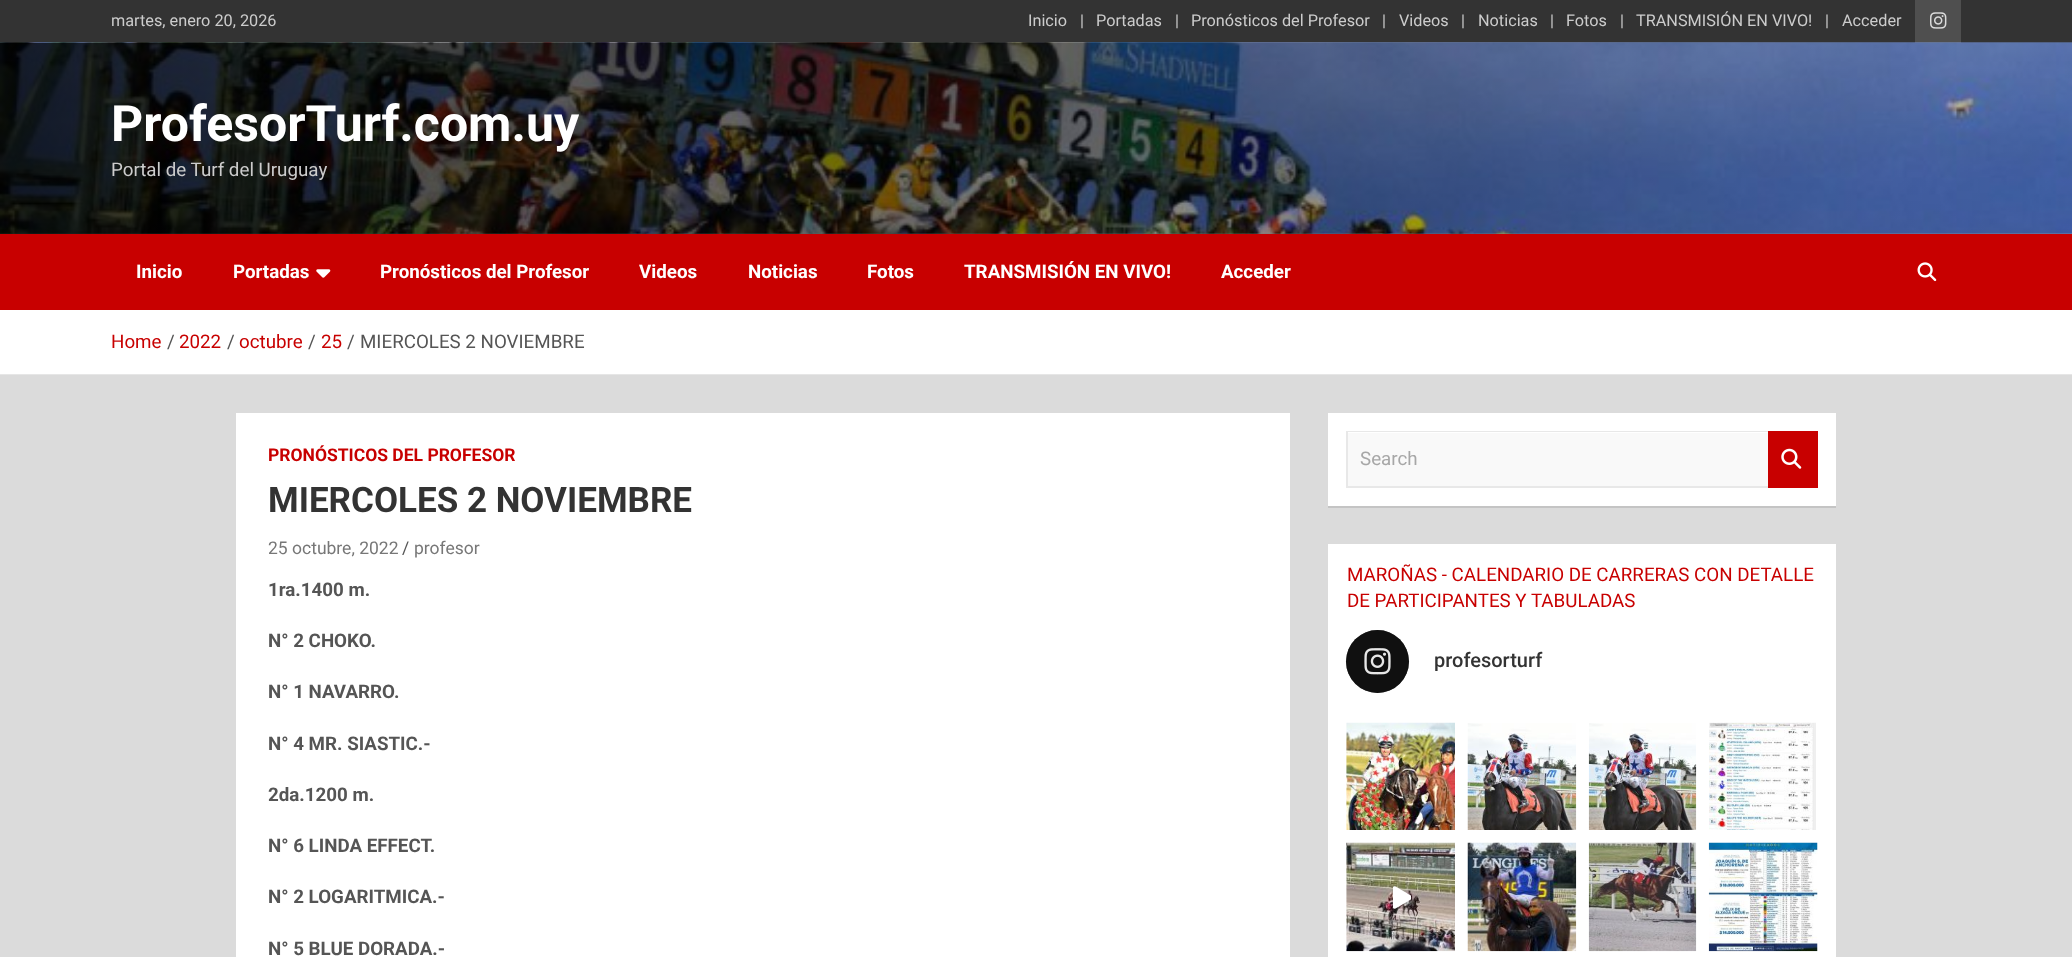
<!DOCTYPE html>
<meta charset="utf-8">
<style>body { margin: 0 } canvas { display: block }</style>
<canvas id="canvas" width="2072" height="957"></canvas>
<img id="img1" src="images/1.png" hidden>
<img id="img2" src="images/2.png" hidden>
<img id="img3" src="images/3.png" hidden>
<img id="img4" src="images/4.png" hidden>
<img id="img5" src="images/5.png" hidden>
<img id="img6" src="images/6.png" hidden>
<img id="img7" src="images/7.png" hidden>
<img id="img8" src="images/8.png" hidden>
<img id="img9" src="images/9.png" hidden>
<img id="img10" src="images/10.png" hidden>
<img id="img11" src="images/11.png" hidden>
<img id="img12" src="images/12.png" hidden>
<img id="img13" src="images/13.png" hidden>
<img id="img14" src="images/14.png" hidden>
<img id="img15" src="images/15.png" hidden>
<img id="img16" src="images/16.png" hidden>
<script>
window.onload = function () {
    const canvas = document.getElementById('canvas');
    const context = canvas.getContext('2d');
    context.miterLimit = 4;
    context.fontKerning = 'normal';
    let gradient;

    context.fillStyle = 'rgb(219, 219, 219)';
    context.fillRect(0, 0, 2072, 957);
    context.fillStyle = 'rgb(51, 51, 51)';
    context.fillRect(0, 0, 2072, 43);
    context.fillStyle = 'rgb(79, 79, 79)';
    context.fillRect(1915, 0, 46, 43);
    context.drawImage(document.getElementById('img1'), 1930, 12, 17, 17);
    context.drawImage(document.getElementById('img2'), 0, 42, 2072, 192);
    gradient = context.createLinearGradient(0, 138, 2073, 138);
    gradient.addColorStop(0, 'rgba(0, 0, 0, 0.8)');
    gradient.addColorStop(1, 'rgba(0, 0, 0, 0.2)');
    context.fillStyle = gradient;
    context.fillRect(0, 43, 2072, 191);
    context.fillStyle = 'rgb(200, 0, 0)';
    context.fillRect(0, 234, 2072, 76);
    context.drawImage(document.getElementById('img3'), 316, 269, 15, 9);
    context.drawImage(document.getElementById('img4'), 1917, 262, 20, 20);
    context.fillStyle = 'rgb(255, 255, 255)';
    context.fillRect(0, 310, 2072, 64);
    context.fillStyle = 'rgb(230, 230, 230)';
    context.fillRect(0, 374, 2072, 1);
    context.fillStyle = 'rgb(255, 255, 255)';
    context.fillRect(236, 413, 1054, 544);
    context.fillStyle = 'rgba(0, 0, 0, 0.1)';
    context.filter = 'blur(0.5px)';
    context.beginPath();
    context.rect(1328, 414, 508, 94);
    context.fill();
    context.filter = 'none';
    context.fillStyle = 'rgb(255, 255, 255)';
    context.fillRect(1328, 413, 508, 93);
    context.fillStyle = 'rgb(249, 249, 249)';
    context.fillRect(1348, 433, 420, 53);
    context.fillStyle = 'rgb(232, 232, 232)';
    context.beginPath();
    context.moveTo(1346, 431);
    context.lineTo(1768, 431);
    context.lineTo(1768, 432);
    context.lineTo(1348, 432);
    context.closePath();
    context.fill();
    context.beginPath();
    context.moveTo(1768, 488);
    context.lineTo(1346, 488);
    context.lineTo(1348, 486);
    context.lineTo(1768, 486);
    context.closePath();
    context.fill();
    context.fillStyle = 'rgba(0, 0, 0, 0.09)';
    context.beginPath();
    context.moveTo(1346, 488);
    context.lineTo(1346, 431);
    context.lineTo(1348, 432);
    context.lineTo(1348, 486);
    context.closePath();
    context.fill();
    context.fillStyle = 'rgb(200, 0, 0)';
    context.fillRect(1768, 431, 50, 57);
    context.drawImage(document.getElementById('img5'), 1781, 448, 21, 21);
    context.fillStyle = 'rgb(255, 255, 255)';
    context.fillRect(1328, 544, 508, 413);
    context.fillStyle = 'rgb(51, 51, 51)';
    context.beginPath();
    context.arc(1377.5, 661.5, 31.5, 0, 2 * Math.PI);
    context.fill();
    context.fillStyle = 'rgba(0, 0, 0, 0.68)';
    context.beginPath();
    context.arc(1377.5, 661.5, 31.5, 0, 2 * Math.PI);
    context.fill();
    context.drawImage(document.getElementById('img6'), 1364, 648, 27, 27);
    context.drawImage(document.getElementById('img7'), 1346, 722, 109, 108);
    context.drawImage(document.getElementById('img8'), 1467, 723, 110, 107);
    context.drawImage(document.getElementById('img9'), 1588, 723, 109, 107);
    context.drawImage(document.getElementById('img10'), 1709, 722, 107, 108);
    context.drawImage(document.getElementById('img11'), 1796, 729, 14, 15);
    context.drawImage(document.getElementById('img12'), 1346, 842, 109, 110);
    context.drawImage(document.getElementById('img13'), 1393, 886, 18, 23);
    context.drawImage(document.getElementById('img14'), 1467, 842, 110, 110);
    context.drawImage(document.getElementById('img15'), 1588, 842, 109, 110);
    context.drawImage(document.getElementById('img16'), 1708, 842, 110, 110);
    context.font = '16.25px Roboto';
    context.fillStyle = 'rgb(204, 204, 204)';
    context.fillText('martes, enero 20, 2026', 111, 26);
    context.fillText('Inicio', 1028, 26);
    context.fillText('|', 1080, 26);
    context.fillText('Portadas', 1096, 26);
    context.fillText('|', 1175, 26);
    context.fillText('Pronósticos del Profesor', 1191, 26);
    context.fillText('|', 1382, 26);
    context.fillText('Videos', 1399, 26);
    context.fillText('|', 1461, 26);
    context.fillText('Noticias', 1478, 26);
    context.fillText('|', 1550, 26);
    context.fillText('Fotos', 1566, 26);
    context.fillText('|', 1620, 26);
    context.fillText('TRANSMISIÓN EN VIVO!', 1636, 26);
    context.fillText('|', 1825, 26);
    context.fillText('Acceder', 1842, 26);
    context.font = 'bold 50px Roboto';
    context.fillStyle = 'rgb(255, 255, 255)';
    context.fillText('ProfesorTurf.com.uy', 111, 141);
    context.font = '18.75px Roboto';
    context.fillStyle = 'rgb(204, 204, 204)';
    context.fillText('Portal de Turf del Uruguay', 111, 176);
    context.font = 'bold 18.75px Roboto';
    context.fillStyle = 'rgb(255, 255, 255)';
    context.fillText('Inicio', 136, 278);
    context.fillText('Portadas', 233, 278);
    context.fillText('Pronósticos del Profesor', 380, 278);
    context.fillText('Videos', 639, 278);
    context.fillText('Noticias', 748, 278);
    context.fillText('Fotos', 867, 278);
    context.fillText('TRANSMISIÓN EN VIVO!', 964, 278);
    context.fillText('Acceder', 1221, 278);
    context.font = '18.75px Roboto';
    context.fillStyle = 'rgb(200, 0, 0)';
    context.fillText('Home', 111, 348);
    context.fillStyle = 'rgb(85, 85, 85)';
    context.fillText('/', 167, 348);
    context.fillStyle = 'rgb(200, 0, 0)';
    context.fillText('2022', 179, 348);
    context.fillStyle = 'rgb(85, 85, 85)';
    context.fillText('/', 227, 348);
    context.fillStyle = 'rgb(200, 0, 0)';
    context.fillText('octubre', 239, 348);
    context.fillStyle = 'rgb(85, 85, 85)';
    context.fillText('/', 308, 348);
    context.fillStyle = 'rgb(200, 0, 0)';
    context.fillText('25', 321, 348);
    context.fillStyle = 'rgb(85, 85, 85)';
    context.fillText('/', 347, 348);
    context.fillText('MIERCOLES 2 NOVIEMBRE', 360, 348);
    context.font = 'bold 17.5px Roboto';
    context.fillStyle = 'rgb(200, 0, 0)';
    context.fillText('PRONÓSTICOS DEL PROFESOR', 268, 461);
    context.font = 'bold 35px Roboto';
    context.fillStyle = 'rgb(51, 51, 51)';
    context.fillText('MIERCOLES 2 NOVIEMBRE', 268, 512);
    context.font = '17.5px Roboto';
    context.fillStyle = 'rgb(119, 119, 119)';
    context.fillText('25 octubre, 2022', 268, 554);
    context.fillStyle = 'rgb(85, 85, 85)';
    context.fillText('/', 402, 554);
    context.fillStyle = 'rgb(119, 119, 119)';
    context.fillText('profesor', 414, 554);
    context.font = 'bold 18.75px Roboto';
    context.fillStyle = 'rgb(85, 85, 85)';
    context.fillText('1ra.1400 m.', 268, 596);
    context.fillText('N° 2 CHOKO.', 268, 647);
    context.fillText('N° 1 NAVARRO.', 268, 698);
    context.fillText('N° 4 MR. SIASTIC.-', 268, 750);
    context.fillText('2da.1200 m.', 268, 801);
    context.fillText('N° 6 LINDA EFFECT.', 268, 852);
    context.fillText('N° 2 LOGARITMICA.-', 268, 903);
    context.fillText('N° 5 BLUE DORADA.-', 268, 955);
    context.font = '18.75px Roboto';
    context.fillStyle = 'rgb(167, 167, 167)';
    context.fillText('Search', 1360, 465);
    context.fillStyle = 'rgb(200, 0, 0)';
    context.fillText('MAROÑAS - CALENDARIO DE CARRERAS CON DETALLE', 1347, 581);
    context.fillText('DE PARTICIPANTES Y TABULADAS', 1347, 607);
    context.font = '500 20px Roboto';
    context.fillStyle = 'rgb(51, 51, 51)';
    context.fillText('profesorturf', 1434, 667);
};
</script>
